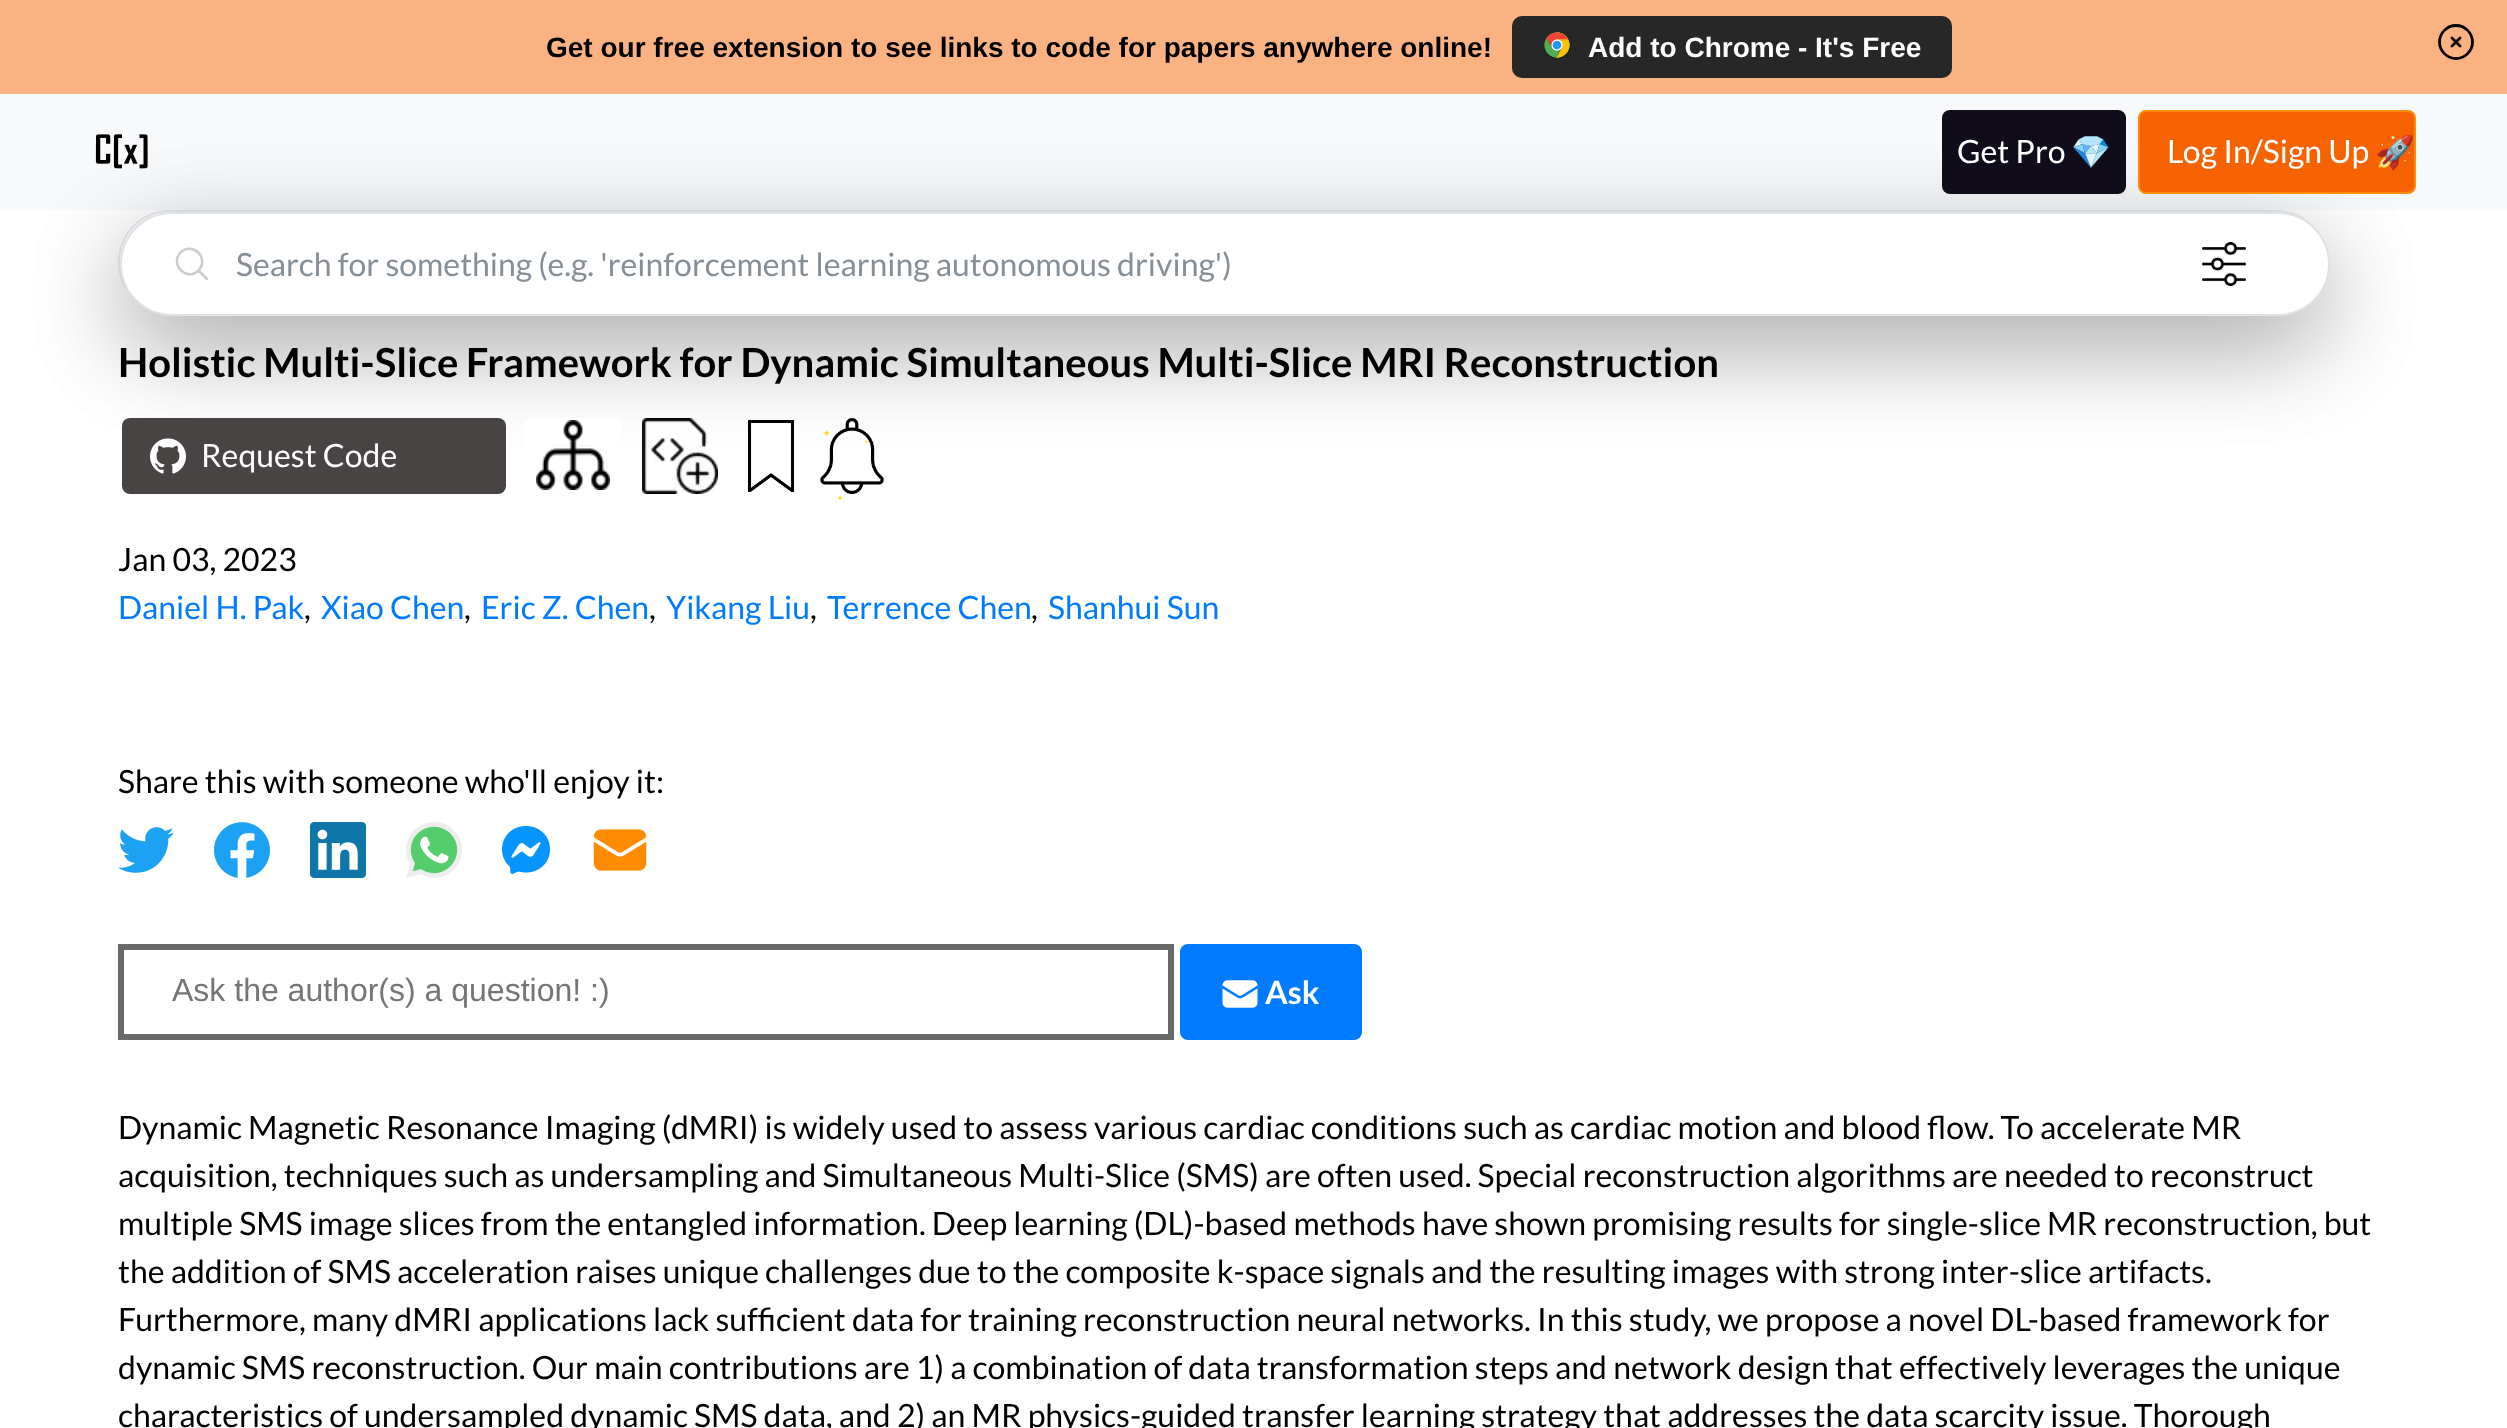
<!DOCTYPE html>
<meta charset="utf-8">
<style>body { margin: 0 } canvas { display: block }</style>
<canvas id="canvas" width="2507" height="1428"></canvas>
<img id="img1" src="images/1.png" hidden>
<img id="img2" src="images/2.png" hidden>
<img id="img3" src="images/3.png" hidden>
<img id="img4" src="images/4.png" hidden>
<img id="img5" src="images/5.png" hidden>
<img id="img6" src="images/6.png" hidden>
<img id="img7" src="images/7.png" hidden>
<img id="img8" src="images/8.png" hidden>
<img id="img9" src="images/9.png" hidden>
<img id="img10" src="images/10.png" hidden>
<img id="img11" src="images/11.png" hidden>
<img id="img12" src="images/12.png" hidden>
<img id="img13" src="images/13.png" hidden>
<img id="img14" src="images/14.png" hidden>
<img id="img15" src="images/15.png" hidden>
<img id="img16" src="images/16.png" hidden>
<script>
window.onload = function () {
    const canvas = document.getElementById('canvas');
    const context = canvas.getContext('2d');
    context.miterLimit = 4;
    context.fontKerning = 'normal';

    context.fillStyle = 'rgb(255, 255, 255)';
    context.fillRect(0, 0, 2507, 1428);
    context.fillStyle = 'rgb(251, 178, 130)';
    context.fillRect(0, 0, 2507, 94);
    context.fillStyle = 'rgb(39, 39, 39)';
    context.beginPath();
    context.roundRect(1512, 16, 440, 62, 10);
    context.fill();
    context.drawImage(document.getElementById('img1'), 1544, 32, 27, 26);
    context.beginPath();
    context.moveTo(2452, 38);
    context.lineTo(2460, 46);
    context.moveTo(2460, 38);
    context.lineTo(2452, 46);
    context.moveTo(2472.5, 42);
    context.bezierCurveTo(2472.5, 51, 2465, 58.5, 2456, 58.5);
    context.bezierCurveTo(2447, 58.5, 2439.5, 51, 2439.5, 42);
    context.bezierCurveTo(2439.5, 33, 2447, 25.5, 2456, 25.5);
    context.bezierCurveTo(2465, 25.5, 2472.5, 33, 2472.5, 42);
    context.closePath();
    context.strokeStyle = 'rgb(0, 0, 0)';
    context.lineWidth = 2.8;
    context.lineCap = 'round';
    context.lineJoin = 'round';
    context.stroke();
    context.fillStyle = 'rgb(248, 249, 250)';
    context.fillRect(0, 94, 2507, 116);
    context.fillStyle = 'rgba(0, 0, 0, 0.18)';
    context.filter = 'blur(48px)';
    context.beginPath();
    context.roundRect(118, 242, 2210, 104, 52);
    context.fill();
    context.filter = 'none';
    context.fillStyle = 'rgb(255, 255, 255)';
    context.beginPath();
    context.roundRect(119, 211, 2208, 102, 51);
    context.fill();
    context.strokeStyle = 'rgb(222, 226, 230)';
    context.lineWidth = 2;
    context.lineJoin = 'miter';
    context.stroke();
    context.fillStyle = 'rgba(0, 0, 0, 0.18)';
    context.filter = 'blur(48px)';
    context.beginPath();
    context.roundRect(120, 244, 2210, 104, 52);
    context.fill();
    context.filter = 'none';
    context.drawImage(document.getElementById('img2'), 95, 134, 53, 35);
    context.fillStyle = 'rgb(17, 12, 26)';
    context.beginPath();
    context.roundRect(1943, 111, 182, 82, 7);
    context.fill();
    context.strokeStyle = 'rgb(17, 12, 26)';
    context.stroke();
    context.fillStyle = 'rgb(247, 98, 0)';
    context.beginPath();
    context.roundRect(2139, 111, 276, 82, 7);
    context.fill();
    context.strokeStyle = 'rgb(255, 140, 0)';
    context.stroke();
    context.fillStyle = 'rgb(255, 255, 255)';
    context.beginPath();
    context.roundRect(121, 213, 2208, 102, 51);
    context.fill();
    context.strokeStyle = 'rgb(222, 226, 230)';
    context.stroke();
    context.beginPath();
    context.moveTo(207, 279);
    context.lineTo(198.5, 270.5);
    context.moveTo(198.5, 270.5);
    context.bezierCurveTo(210, 258.5, 192.5, 241, 180.5, 252.5);
    context.bezierCurveTo(169, 264.5, 187, 282, 198.5, 270.5);
    context.closePath();
    context.strokeStyle = 'rgb(204, 204, 204)';
    context.lineWidth = 2.5;
    context.lineJoin = 'round';
    context.stroke();
    context.drawImage(document.getElementById('img3'), 2202, 242, 44, 44);
    context.fillStyle = 'rgb(72, 68, 68)';
    context.beginPath();
    context.roundRect(122, 418, 384, 76, 8);
    context.fill();
    context.drawImage(document.getElementById('img4'), 150, 438, 36, 36);
    context.fillStyle = 'rgb(255, 255, 255)';
    context.beginPath();
    context.roundRect(524, 418, 98, 82, 8);
    context.fill();
    context.drawImage(document.getElementById('img5'), 536, 420, 74, 70);
    context.drawImage(document.getElementById('img6'), 642, 418, 76, 76);
    context.drawImage(document.getElementById('img7'), 748, 420, 46, 72);
    context.drawImage(document.getElementById('img8'), 820, 418, 64, 76);
    context.drawImage(document.getElementById('img9'), 823, 430, 46, 71);
    context.drawImage(document.getElementById('img10'), 118, 827, 56, 46);
    context.drawImage(document.getElementById('img11'), 214, 822, 56, 56);
    context.drawImage(document.getElementById('img12'), 310, 822, 56, 56);
    context.drawImage(document.getElementById('img13'), 406, 822, 56, 56);
    context.drawImage(document.getElementById('img14'), 502, 826, 48, 48);
    context.drawImage(document.getElementById('img15'), 593, 829, 54, 42);
    context.strokeStyle = 'rgb(105, 105, 105)';
    context.lineWidth = 6;
    context.lineJoin = 'miter';
    context.strokeRect(121, 947, 1050, 90);
    context.fillStyle = 'rgb(0, 123, 255)';
    context.beginPath();
    context.roundRect(1183, 947, 176, 90, 5);
    context.fill();
    context.strokeStyle = 'rgb(0, 123, 255)';
    context.stroke();
    context.drawImage(document.getElementById('img16'), 1222, 980, 36, 28);
    context.font = 'bold 28px Liberation Sans';
    context.fillStyle = 'rgb(0, 0, 0)';
    context.fillText('Get our free extension to see links to code for papers anywhere online!', 546, 57);
    context.fillStyle = 'rgb(255, 255, 255)';
    context.fillText('Add to Chrome - It\'s Free', 1588, 57);
    context.font = '32px Lato';
    context.fillText('Get Pro', 1957, 163);
    context.font = '32px Noto Color Emoji';
    context.fillText('💎', 2071, 163);
    context.font = '32px Lato';
    context.fillText('Log In/Sign Up', 2167, 163);
    context.font = '32px Noto Color Emoji';
    context.fillText('🚀', 2375, 163);
    context.font = '32px Lato';
    context.fillStyle = 'rgb(134, 142, 150)';
    context.fillText('Search for something (e.g. \'reinforcement learning autonomous driving\')', 236, 276);
    context.font = 'bold 40px Lato';
    context.fillStyle = 'rgb(0, 0, 0)';
    context.fillText('Holistic Multi-Slice Framework for Dynamic Simultaneous Multi-Slice MRI Reconstruction', 118, 377);
    context.font = '32px Lato';
    context.fillStyle = 'rgb(255, 255, 255)';
    context.fillText('Request Code', 201, 467);
    context.fillStyle = 'rgb(0, 0, 0)';
    context.fillText('Jan 03, 2023', 118, 571);
    context.fillStyle = 'rgb(0, 123, 255)';
    context.fillText('Daniel H. Pak', 118, 619);
    context.fillStyle = 'rgb(0, 0, 0)';
    context.fillText(',', 304, 619);
    context.fillStyle = 'rgb(0, 123, 255)';
    context.fillText('Xiao Chen', 321, 619);
    context.fillStyle = 'rgb(0, 0, 0)';
    context.fillText(',', 464, 619);
    context.fillStyle = 'rgb(0, 123, 255)';
    context.fillText('Eric Z. Chen', 481, 619);
    context.fillStyle = 'rgb(0, 0, 0)';
    context.fillText(',', 649, 619);
    context.fillStyle = 'rgb(0, 123, 255)';
    context.fillText('Yikang Liu', 666, 619);
    context.fillStyle = 'rgb(0, 0, 0)';
    context.fillText(',', 810, 619);
    context.fillStyle = 'rgb(0, 123, 255)';
    context.fillText('Terrence Chen', 827, 619);
    context.fillStyle = 'rgb(0, 0, 0)';
    context.fillText(',', 1031, 619);
    context.fillStyle = 'rgb(0, 123, 255)';
    context.fillText('Shanhui Sun', 1048, 619);
    context.fillStyle = 'rgb(0, 0, 0)';
    context.fillText('Share this with someone who\'ll enjoy it:', 118, 793);
    context.font = '32px Liberation Sans';
    context.fillStyle = 'rgb(117, 117, 117)';
    context.fillText('Ask the author(s) a question! :)', 172, 1001);
    context.font = 'bold 32px Lato';
    context.fillStyle = 'rgb(255, 255, 255)';
    context.fillText('Ask', 1265, 1004);
    context.font = '32px Lato';
    context.fillStyle = 'rgb(0, 0, 0)';
    context.fillText('Dynamic Magnetic Resonance Imaging (dMRI) is widely used to assess various cardiac conditions such as cardiac motion and blood flow. To accelerate MR', 118, 1139);
    context.fillText('acquisition, techniques such as undersampling and Simultaneous Multi-Slice (SMS) are often used. Special reconstruction algorithms are needed to reconstruct', 118, 1187);
    context.fillText('multiple SMS image slices from the entangled information. Deep learning (DL)-based methods have shown promising results for single-slice MR reconstruction, but', 118, 1235);
    context.fillText('the addition of SMS acceleration raises unique challenges due to the composite k-space signals and the resulting images with strong inter-slice artifacts.', 118, 1283);
    context.fillText('Furthermore, many dMRI applications lack sufficient data for training reconstruction neural networks. In this study, we propose a novel DL-based framework for', 118, 1331);
    context.fillText('dynamic SMS reconstruction. Our main contributions are 1) a combination of data transformation steps and network design that effectively leverages the unique', 118, 1379);
    context.fillText('characteristics of undersampled dynamic SMS data, and 2) an MR physics-guided transfer learning strategy that addresses the data scarcity issue. Thorough', 118, 1427);
};
</script>
